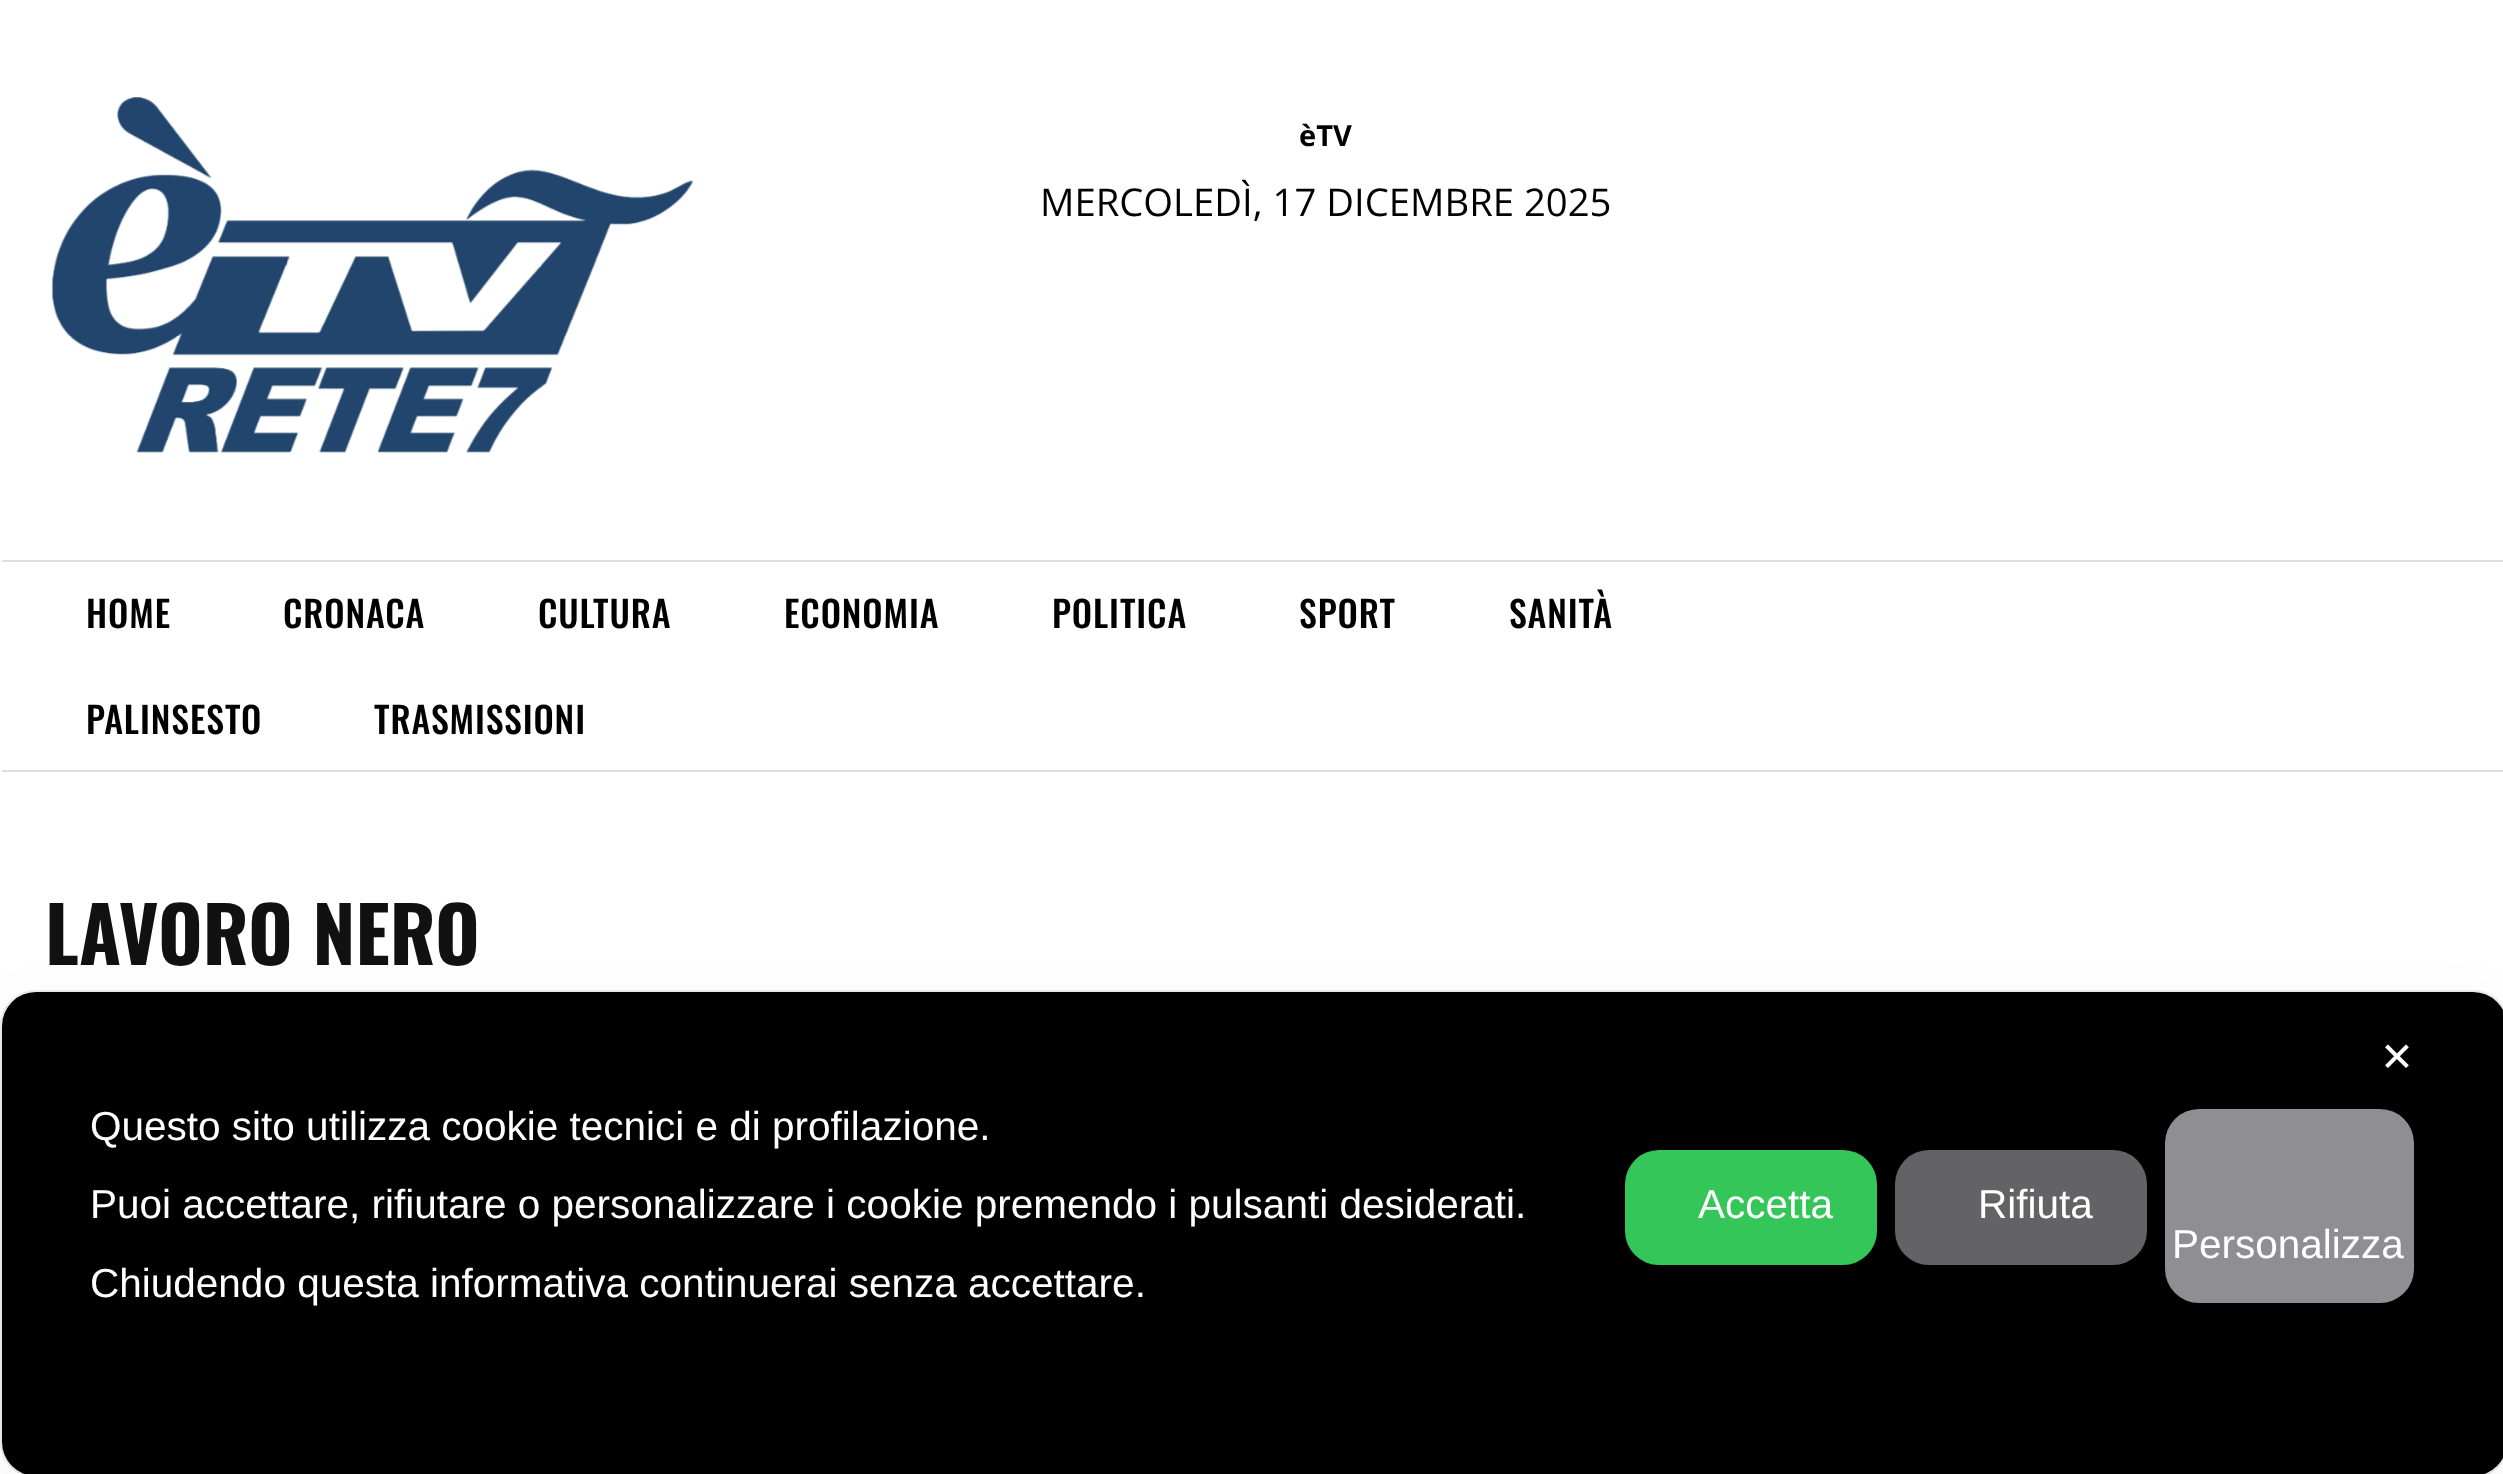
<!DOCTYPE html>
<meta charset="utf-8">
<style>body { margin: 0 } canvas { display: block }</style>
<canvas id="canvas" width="2503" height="1474"></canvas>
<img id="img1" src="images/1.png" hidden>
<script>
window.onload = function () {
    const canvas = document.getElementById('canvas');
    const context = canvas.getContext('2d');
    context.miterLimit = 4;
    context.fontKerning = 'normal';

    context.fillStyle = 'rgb(255, 255, 255)';
    context.fillRect(0, 0, 2503, 1474);
    context.drawImage(document.getElementById('img1'), 51, 97, 643, 356);
    context.fillStyle = 'rgb(221, 221, 221)';
    context.fillRect(2, 560, 2501, 2);
    context.fillRect(2, 770, 2501, 2);
    context.beginPath();
    context.roundRect(1, 991, 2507, 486, 35);
    context.strokeStyle = 'rgb(235, 235, 235)';
    context.lineWidth = 2;
    context.stroke();
    context.fillStyle = 'rgba(0, 0, 0, 0.05)';
    context.filter = 'blur(27px)';
    context.beginPath();
    context.roundRect(2, 1006, 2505, 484, 34);
    context.fill();
    context.filter = 'none';
    context.fillStyle = 'rgb(0, 0, 0)';
    context.beginPath();
    context.roundRect(2, 992, 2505, 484, 34);
    context.fill();
    context.fillStyle = 'rgb(52, 198, 89)';
    context.beginPath();
    context.roundRect(1625, 1150, 252, 115, 34);
    context.fill();
    context.fillStyle = 'rgb(99, 99, 102)';
    context.beginPath();
    context.roundRect(1895, 1150, 252, 115, 34);
    context.fill();
    context.fillStyle = 'rgb(142, 142, 147)';
    context.beginPath();
    context.roundRect(2165, 1109, 249, 194, 34);
    context.fill();
    context.font = 'bold 29px Open Sans';
    context.fillStyle = 'rgb(0, 0, 0)';
    context.fillText('èTV', 1299, 146);
    context.font = '38.25px Open Sans';
    context.fillText('MERCOLEDÌ, 17 DICEMBRE 2025', 1040, 216);
    context.letterSpacing = '0.9px';
    context.font = '500 36px Oswald';
    context.fillText('HOME', 86, 628);
    context.fillText('CRONACA', 283, 628);
    context.fillText('CULTURA', 538, 628);
    context.fillText('ECONOMIA', 784, 628);
    context.fillText('POLITICA', 1052, 628);
    context.fillText('SPORT', 1299, 628);
    context.fillText('SANITÀ', 1509, 628);
    context.fillText('PALINSESTO', 86, 734);
    context.fillText('TRASMISSIONI', 374, 734);
    context.letterSpacing = '0px';
    context.font = 'bold 76.5px Oswald';
    context.fillStyle = 'rgb(17, 17, 17)';
    context.fillText('LAVORO NERO', 45, 965);
    context.font = '40.5px DejaVu Sans';
    context.fillStyle = 'rgb(255, 255, 255)';
    context.fillText('✕', 2380, 1071);
    context.font = '40.5px Liberation Sans';
    context.fillText('Questo sito utilizza cookie tecnici e di profilazione.', 90, 1140);
    context.fillText('Puoi accettare, rifiutare o personalizzare i cookie premendo i pulsanti desiderati.', 90, 1218);
    context.fillText('Chiudendo questa informativa continuerai senza accettare.', 90, 1297);
    context.fillText('Accetta', 1698, 1218);
    context.fillText('Rifiuta', 1978, 1218);
    context.fillText('Personalizza', 2172, 1258);
};
</script>
